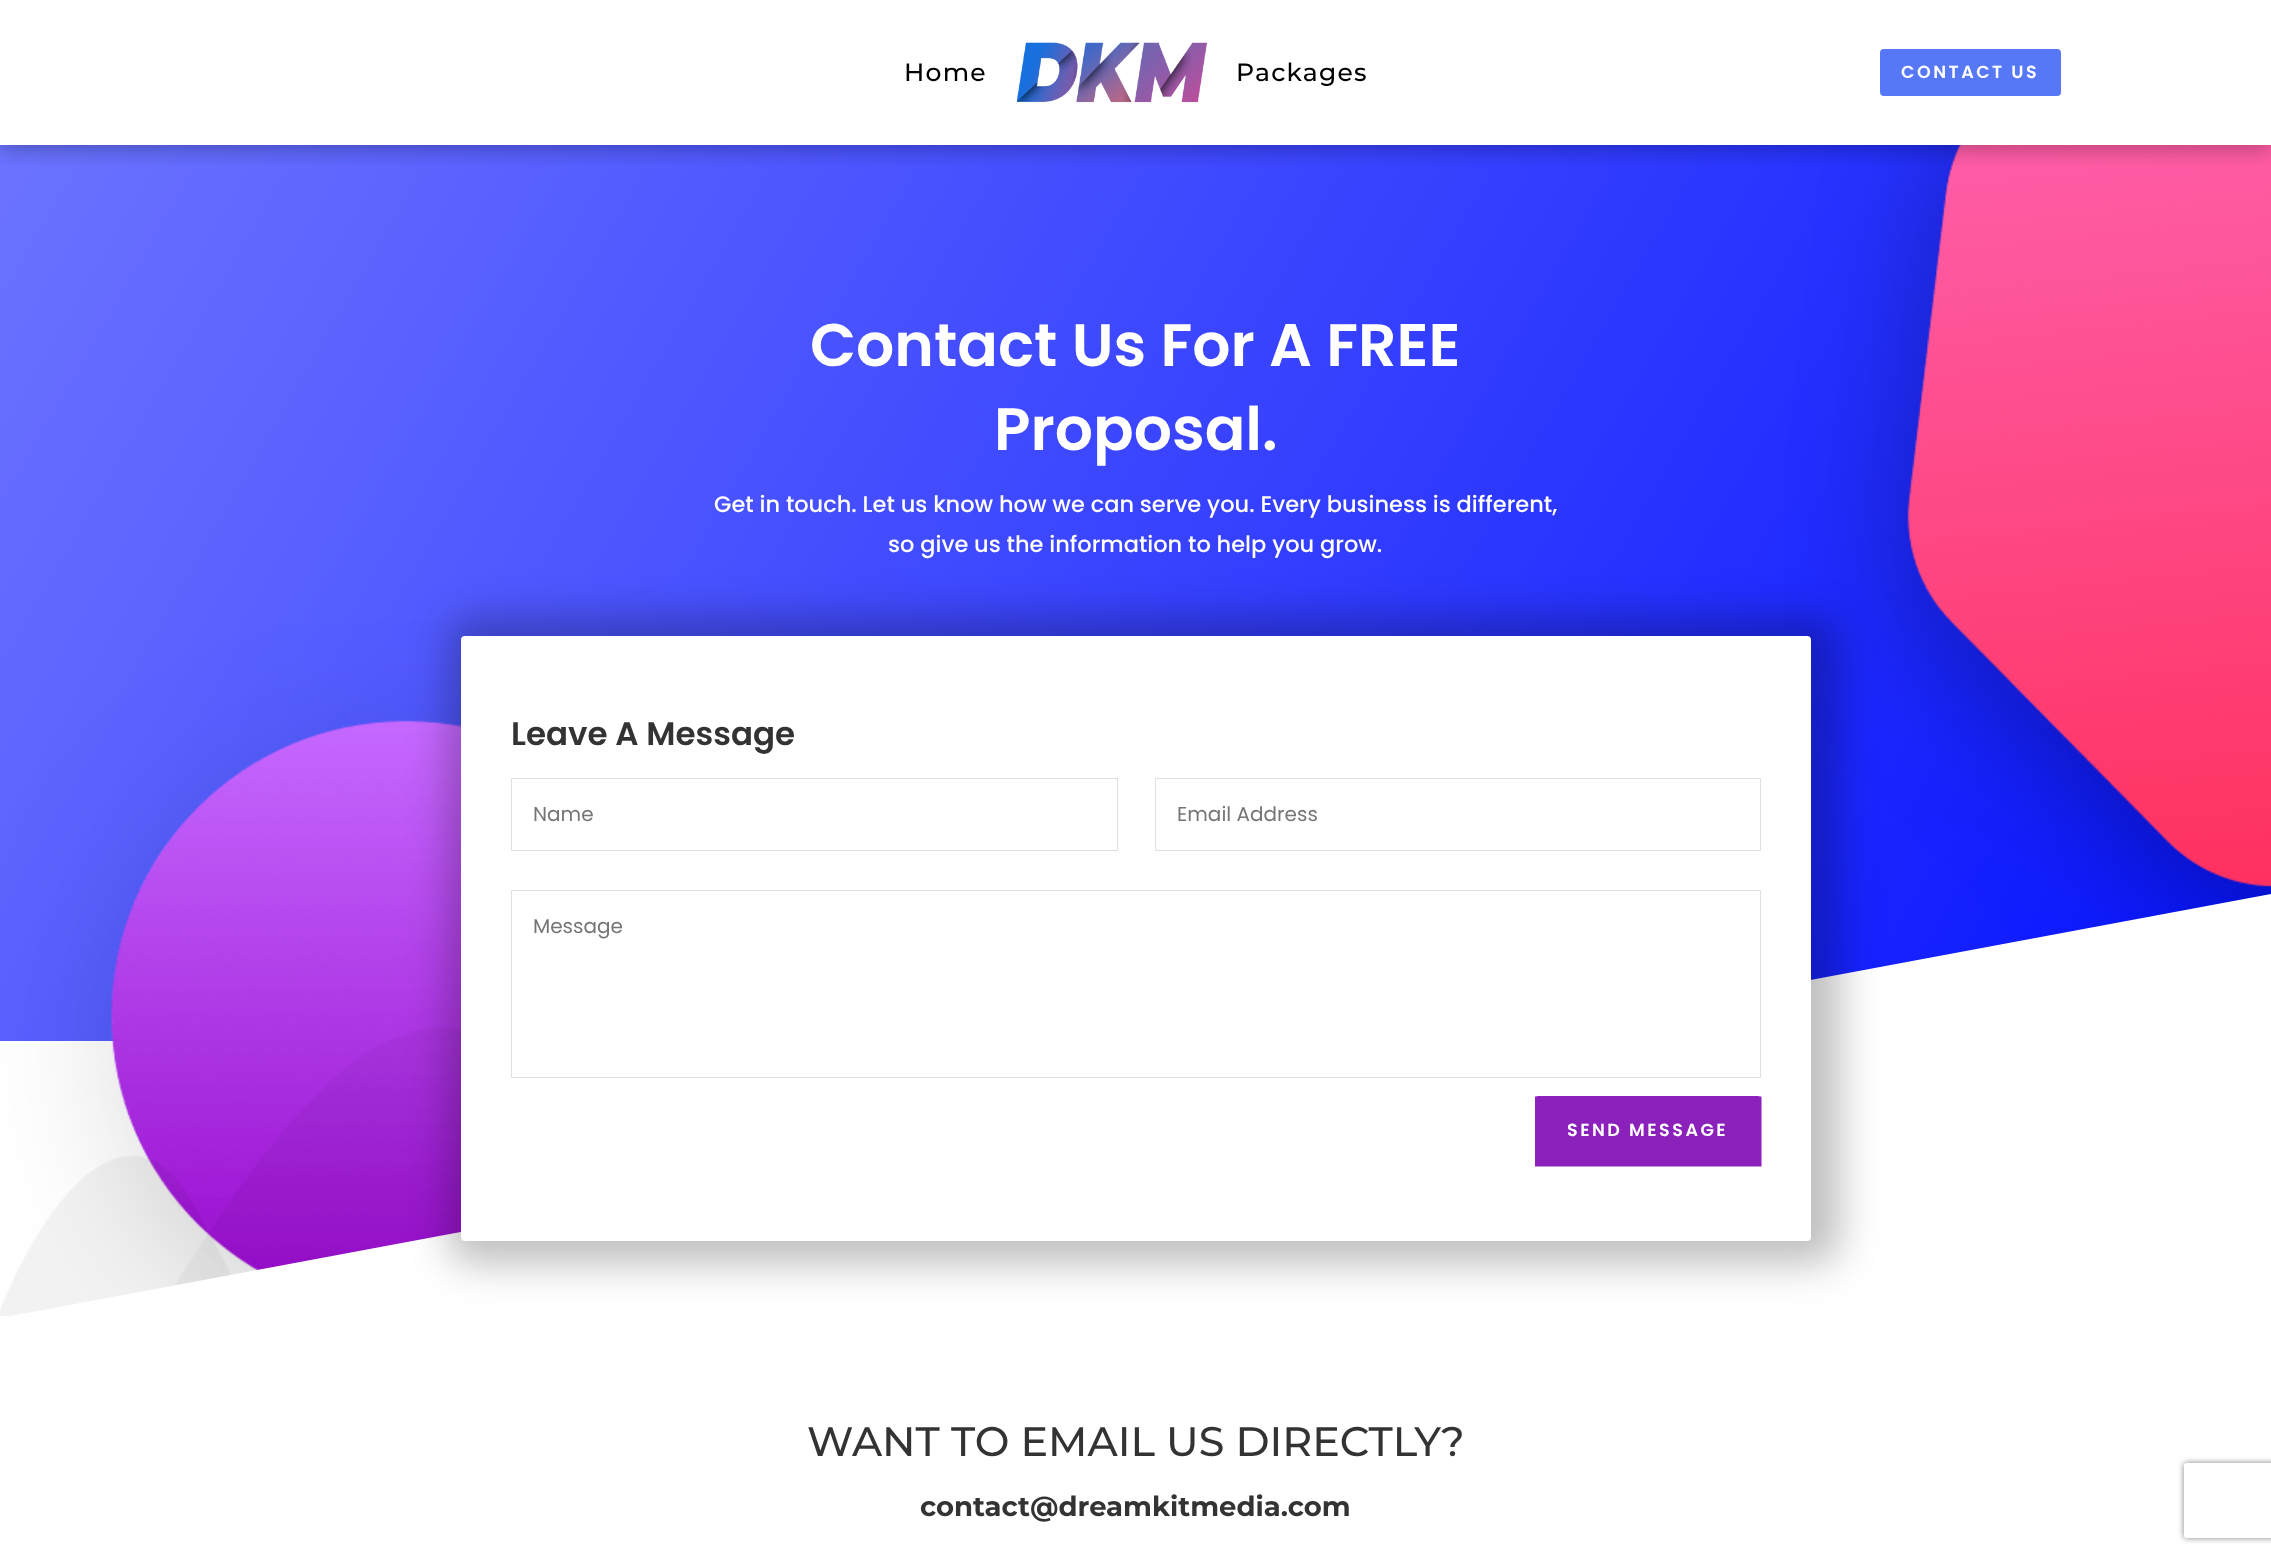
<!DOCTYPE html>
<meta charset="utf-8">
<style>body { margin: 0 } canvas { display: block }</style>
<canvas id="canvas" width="2271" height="1555"></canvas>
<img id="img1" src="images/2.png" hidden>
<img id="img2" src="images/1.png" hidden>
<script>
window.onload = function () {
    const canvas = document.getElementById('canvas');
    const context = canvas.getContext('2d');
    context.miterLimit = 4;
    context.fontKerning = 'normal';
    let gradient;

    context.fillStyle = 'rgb(255, 255, 255)';
    context.fillRect(0, 0, 2271, 1555);
    gradient = context.createLinearGradient(30, 92, 2241, 1369);
    gradient.addColorStop(0, 'rgb(107, 115, 255)');
    gradient.addColorStop(1, 'rgb(0, 13, 255)');
    context.fillStyle = gradient;
    context.fillRect(0, 145, 2271, 896);
    context.drawImage(document.getElementById('img1'), 0, 145, 2271, 1171);
    context.save();
    context.beginPath();
    context.rect(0, 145, 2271, 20);
    context.clip();
    context.fillStyle = 'rgba(0, 0, 0, 0.3)';
    context.filter = 'blur(11px)';
    context.beginPath();
    context.rect(0, 3, 2271, 145);
    context.fill();
    context.filter = 'none';
    context.restore();
    context.drawImage(document.getElementById('img2'), 1016, 42, 191, 61);
    context.fillStyle = 'rgb(86, 120, 246)';
    context.beginPath();
    context.roundRect(1882, 51, 177, 43, 2);
    context.fill();
    context.strokeStyle = 'rgb(86, 120, 246)';
    context.lineWidth = 4;
    context.stroke();
    context.fillStyle = 'rgb(255, 255, 255)';
    context.beginPath();
    context.moveTo(2271, 894);
    context.lineTo(2271, 1318);
    context.lineTo(0, 1318);
    context.closePath();
    context.fill();
    context.fillStyle = 'rgba(0, 0, 0, 0.25)';
    context.filter = 'blur(19.5px)';
    context.beginPath();
    context.roundRect(448, 616, 1392, 648, 25);
    context.fill();
    context.filter = 'none';
    context.fillStyle = 'rgb(255, 255, 255)';
    context.beginPath();
    context.roundRect(461, 636, 1350, 605, 4);
    context.fill();
    context.strokeStyle = 'rgb(224, 224, 224)';
    context.lineWidth = 1;
    context.strokeRect(511.5, 778.5, 606, 72);
    context.strokeRect(1155.5, 778.5, 605, 72);
    context.strokeRect(511.5, 890.5, 1249, 187);
    context.fillStyle = 'rgb(139, 32, 187)';
    context.beginPath();
    context.roundRect(1535, 1096, 226, 70, 4);
    context.fill();
    context.beginPath();
    context.moveTo(1542.5, 1104);
    context.lineTo(1754, 1104);
    context.lineTo(1754, 1159);
    context.lineTo(1542.5, 1159);
    context.closePath();
    context.strokeStyle = 'rgb(139, 32, 187)';
    context.lineWidth = 15;
    context.stroke();
    context.save();
    context.beginPath();
    context.moveTo(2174, 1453);
    context.lineTo(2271, 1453);
    context.lineTo(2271, 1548);
    context.lineTo(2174, 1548);
    context.closePath();
    context.moveTo(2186.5, 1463);
    context.lineTo(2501.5, 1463);
    context.bezierCurveTo(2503, 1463, 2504, 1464, 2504, 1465.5);
    context.lineTo(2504, 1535.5);
    context.bezierCurveTo(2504, 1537, 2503, 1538, 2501.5, 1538);
    context.lineTo(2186.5, 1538);
    context.bezierCurveTo(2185, 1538, 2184, 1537, 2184, 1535.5);
    context.lineTo(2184, 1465.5);
    context.bezierCurveTo(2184, 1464, 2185, 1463, 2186.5, 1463);
    context.closePath();
    context.clip('evenodd');
    context.fillStyle = 'rgb(128, 128, 128)';
    context.filter = 'blur(3px)';
    context.beginPath();
    context.roundRect(2184, 1463, 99, 75, 2.5);
    context.fill();
    context.filter = 'none';
    context.restore();
    context.letterSpacing = '1.25px';
    context.font = '500 25px Montserrat';
    context.fillStyle = 'rgb(0, 0, 0)';
    context.fillText('Home', 904, 81);
    context.fillText('Packages', 1236, 81);
    context.letterSpacing = '2.5px';
    context.font = '600 17.5px Poppins';
    context.fillStyle = 'rgb(255, 255, 255)';
    context.fillText('CONTACT US', 1901, 78);
    context.letterSpacing = '0px';
    context.font = '600 60px Poppins';
    context.fillText('Contact Us For A FREE', 810, 366);
    context.fillText('Proposal.', 994, 450);
    context.font = '500 22.5px Poppins';
    context.fillText('Get in touch. Let us know how we can serve you. Every business is different,', 714, 512);
    context.fillText('so give us the information to help you grow.', 888, 552);
    context.font = '600 32.5px Poppins';
    context.fillStyle = 'rgb(51, 51, 51)';
    context.fillText('Leave A Message', 511, 745);
    context.font = '20px Poppins';
    context.fillStyle = 'rgb(117, 117, 117)';
    context.fillText('Name', 533, 821);
    context.fillText('Email Address', 1177, 821);
    context.fillText('Message', 533, 933);
    context.letterSpacing = '2.5px';
    context.font = '600 17.5px Poppins';
    context.fillStyle = 'rgb(255, 255, 255)';
    context.fillText('SEND MESSAGE', 1567, 1136);
    context.letterSpacing = '0px';
    context.font = '500 41.25px Montserrat';
    context.fillStyle = 'rgb(51, 51, 51)';
    context.fillText('WANT TO EMAIL US DIRECTLY?', 807, 1456);
    context.font = 'bold 27.5px Montserrat';
    context.fillText('contact@dreamkitmedia.com', 920, 1516);
};
</script>
